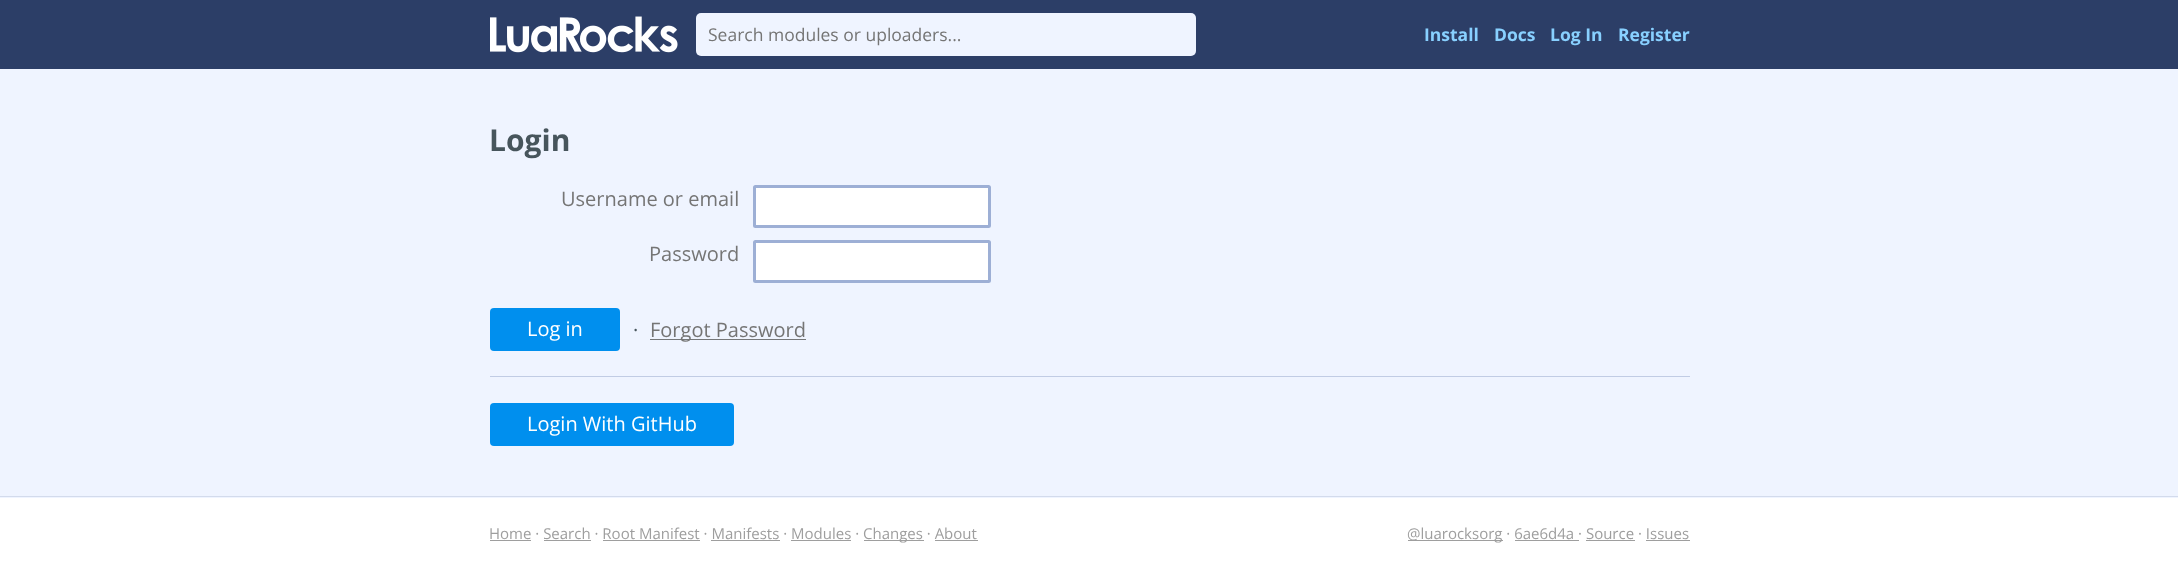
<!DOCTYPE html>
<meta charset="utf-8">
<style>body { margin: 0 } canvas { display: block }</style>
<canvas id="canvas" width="2178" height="574"></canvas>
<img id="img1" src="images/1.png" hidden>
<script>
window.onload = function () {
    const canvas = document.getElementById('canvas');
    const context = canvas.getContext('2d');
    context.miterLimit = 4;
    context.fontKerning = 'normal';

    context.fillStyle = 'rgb(255, 255, 255)';
    context.fillRect(0, 0, 2178, 574);
    context.fillStyle = 'rgb(239, 244, 255)';
    context.fillRect(0, 69, 2178, 429);
    context.fillStyle = 'rgb(211, 219, 236)';
    context.fillRect(0, 496, 2178, 1);
    context.fillStyle = 'rgb(44, 62, 103)';
    context.fillRect(0, 0, 2178, 69);
    context.drawImage(document.getElementById('img1'), 490, 16, 188, 37);
    context.fillStyle = 'rgb(239, 244, 255)';
    context.beginPath();
    context.roundRect(696, 13, 500, 43, 5);
    context.fill();
    context.fillStyle = 'rgb(255, 255, 255)';
    context.beginPath();
    context.roundRect(754.5, 186.5, 235, 40, 1);
    context.fill();
    context.strokeStyle = 'rgb(157, 175, 213)';
    context.lineWidth = 3;
    context.stroke();
    context.beginPath();
    context.roundRect(754.5, 241.5, 235, 40, 1);
    context.fill();
    context.stroke();
    context.fillStyle = 'rgb(0, 143, 238)';
    context.beginPath();
    context.roundRect(490, 308, 130, 43, 4);
    context.fill();
    context.fillStyle = 'rgb(117, 119, 121)';
    context.fillRect(650, 339, 156, 1);
    context.fillStyle = 'rgb(193, 204, 228)';
    context.fillRect(490, 376, 1200, 1);
    context.fillStyle = 'rgb(0, 143, 238)';
    context.beginPath();
    context.roundRect(490, 403, 244, 43, 4);
    context.fill();
    context.fillStyle = 'rgb(158, 158, 158)';
    context.fillRect(490, 540, 41, 1);
    context.fillRect(864, 540, 60, 1);
    context.fillRect(544, 540, 47, 1);
    context.fillRect(603, 540, 97, 1);
    context.fillRect(711, 540, 69, 1);
    context.fillRect(791, 540, 60, 1);
    context.fillRect(935, 540, 43, 1);
    context.fillRect(1408, 540, 95, 1);
    context.fillRect(1515, 540, 64, 1);
    context.fillRect(1586, 540, 49, 1);
    context.fillRect(1646, 540, 44, 1);
    context.font = '17.5px Open Sans';
    context.fillStyle = 'rgb(117, 117, 117)';
    context.fillText('Search modules or uploaders...', 708, 41);
    context.font = 'bold 17.5px Open Sans';
    context.fillStyle = 'rgb(136, 208, 255)';
    context.fillText('Install', 1424, 41);
    context.fillText('Docs', 1494, 41);
    context.fillText('Log In', 1550, 41);
    context.fillText('Register', 1618, 41);
    context.font = 'bold 30px Open Sans';
    context.fillStyle = 'rgb(71, 85, 92)';
    context.fillText('Login', 489, 151);
    context.font = '20px Open Sans';
    context.fillStyle = 'rgb(117, 117, 117)';
    context.fillText('Username or email', 561, 206);
    context.fillText('Password', 649, 261);
    context.fillStyle = 'rgb(255, 255, 255)';
    context.fillText('Log in', 527, 336);
    context.fillStyle = 'rgb(71, 85, 92)';
    context.fillText('·', 633, 337);
    context.fillStyle = 'rgb(117, 117, 117)';
    context.fillText('Forgot Password', 650, 337);
    context.fillStyle = 'rgb(255, 255, 255)';
    context.fillText('Login With GitHub', 527, 431);
    context.font = '15px Open Sans';
    context.fillStyle = 'rgb(158, 158, 158)';
    context.fillText('Home · Search · Root Manifest · Manifests · Modules ·', 489, 539);
    context.fillText('Changes · About', 863, 539);
    context.fillText('@luarocksorg · 6ae6d4a · Source · Issues', 1407, 539);
};
</script>
